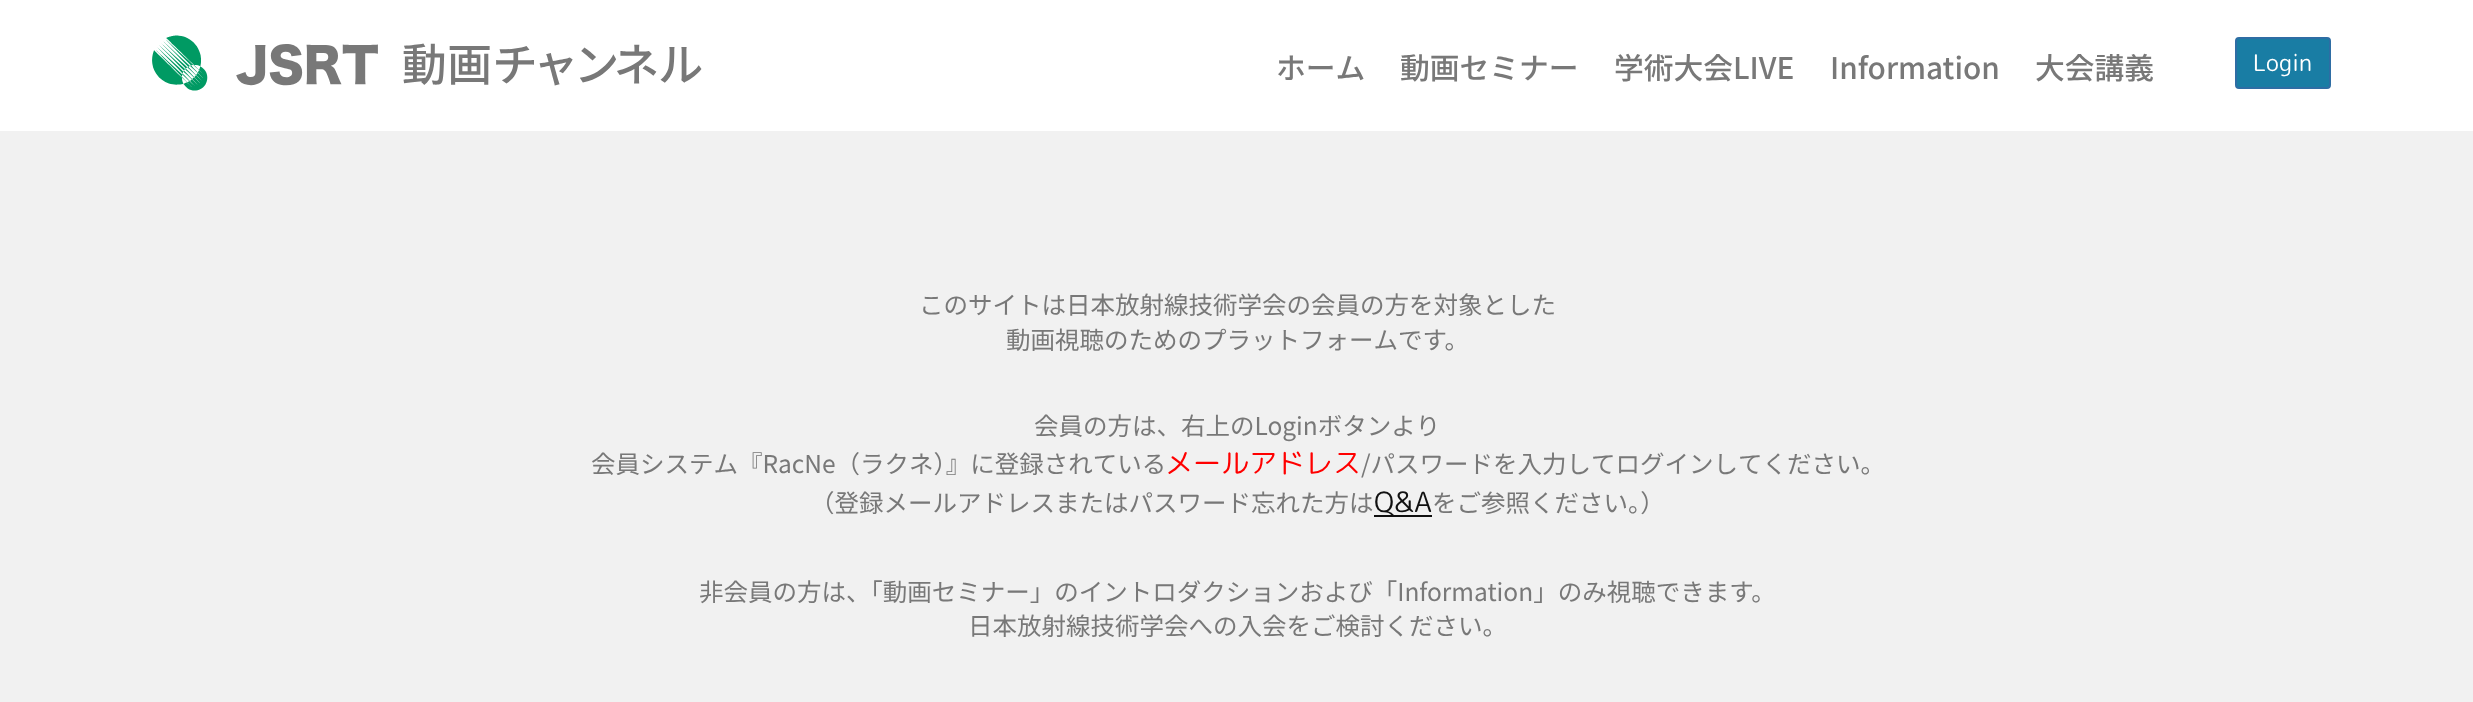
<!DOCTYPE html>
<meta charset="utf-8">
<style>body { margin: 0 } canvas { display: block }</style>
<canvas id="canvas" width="2473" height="702"></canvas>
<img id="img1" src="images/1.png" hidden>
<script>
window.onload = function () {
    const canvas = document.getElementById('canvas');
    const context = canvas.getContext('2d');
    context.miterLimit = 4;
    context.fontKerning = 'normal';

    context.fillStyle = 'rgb(255, 255, 255)';
    context.fillRect(0, 0, 2473, 702);
    context.drawImage(document.getElementById('img1'), 152, 35, 550, 56);
    context.fillStyle = 'rgb(25, 125, 164)';
    context.beginPath();
    context.roundRect(2236, 38, 94, 50, 3);
    context.fill();
    context.strokeStyle = 'rgb(46, 109, 164)';
    context.lineWidth = 2;
    context.stroke();
    context.fillStyle = 'rgb(241, 241, 241)';
    context.fillRect(0, 131, 2473, 571);
    context.fillStyle = 'rgb(17, 17, 17)';
    context.fillRect(1374, 515, 58, 2);
    context.font = '500 29.75px Noto Sans JP';
    context.fillStyle = 'rgb(120, 120, 120)';
    context.fillText('ホーム', 1276, 79);
    context.fillText('動画セミナー', 1400, 79);
    context.fillText('学術大会LIVE', 1614, 79);
    context.fillText('Information', 1830, 79);
    context.fillText('大会講義', 2035, 79);
    context.font = '23px "Rounded Mplus 1c"';
    context.fillStyle = 'rgb(255, 255, 255)';
    context.fillText('Login', 2253, 71);
    context.font = '100 24.5px Noto Sans JP';
    context.fillStyle = 'rgb(120, 120, 120)';
    context.fillText('このサイトは日本放射線技術学会の会員の方を対象とした', 919, 314);
    context.fillText('動画視聴のためのプラットフォームです。', 1006, 349);
    context.fillText('会員の方は、右上のLoginボタンより', 1034, 435);
    context.fillText('会員システム『RacNe（ラクネ）』に登録されている', 591, 473);
    context.font = '28px "Rounded Mplus 1c"';
    context.fillStyle = 'rgb(255, 0, 0)';
    context.fillText('メールアドレス', 1165, 473);
    context.font = '100 24.5px Noto Sans JP';
    context.fillStyle = 'rgb(120, 120, 120)';
    context.fillText('/パスワードを入力してログインしてください。', 1361, 473);
    context.fillText('（登録メールアドレスまたはパスワード忘れた方は', 810, 512);
    context.font = '28px "Rounded Mplus 1c"';
    context.fillStyle = 'rgb(17, 17, 17)';
    context.fillText('Q&A', 1374, 512);
    context.font = '100 24.5px Noto Sans JP';
    context.fillStyle = 'rgb(120, 120, 120)';
    context.fillText('をご参照ください。）', 1432, 512);
    context.fillText('非会員の方は、「動画セミナー」のイントロダクションおよび「Information」のみ視聴できます。', 699, 601);
    context.fillText('日本放射線技術学会への入会をご検討ください。', 968, 635);
};
</script>
